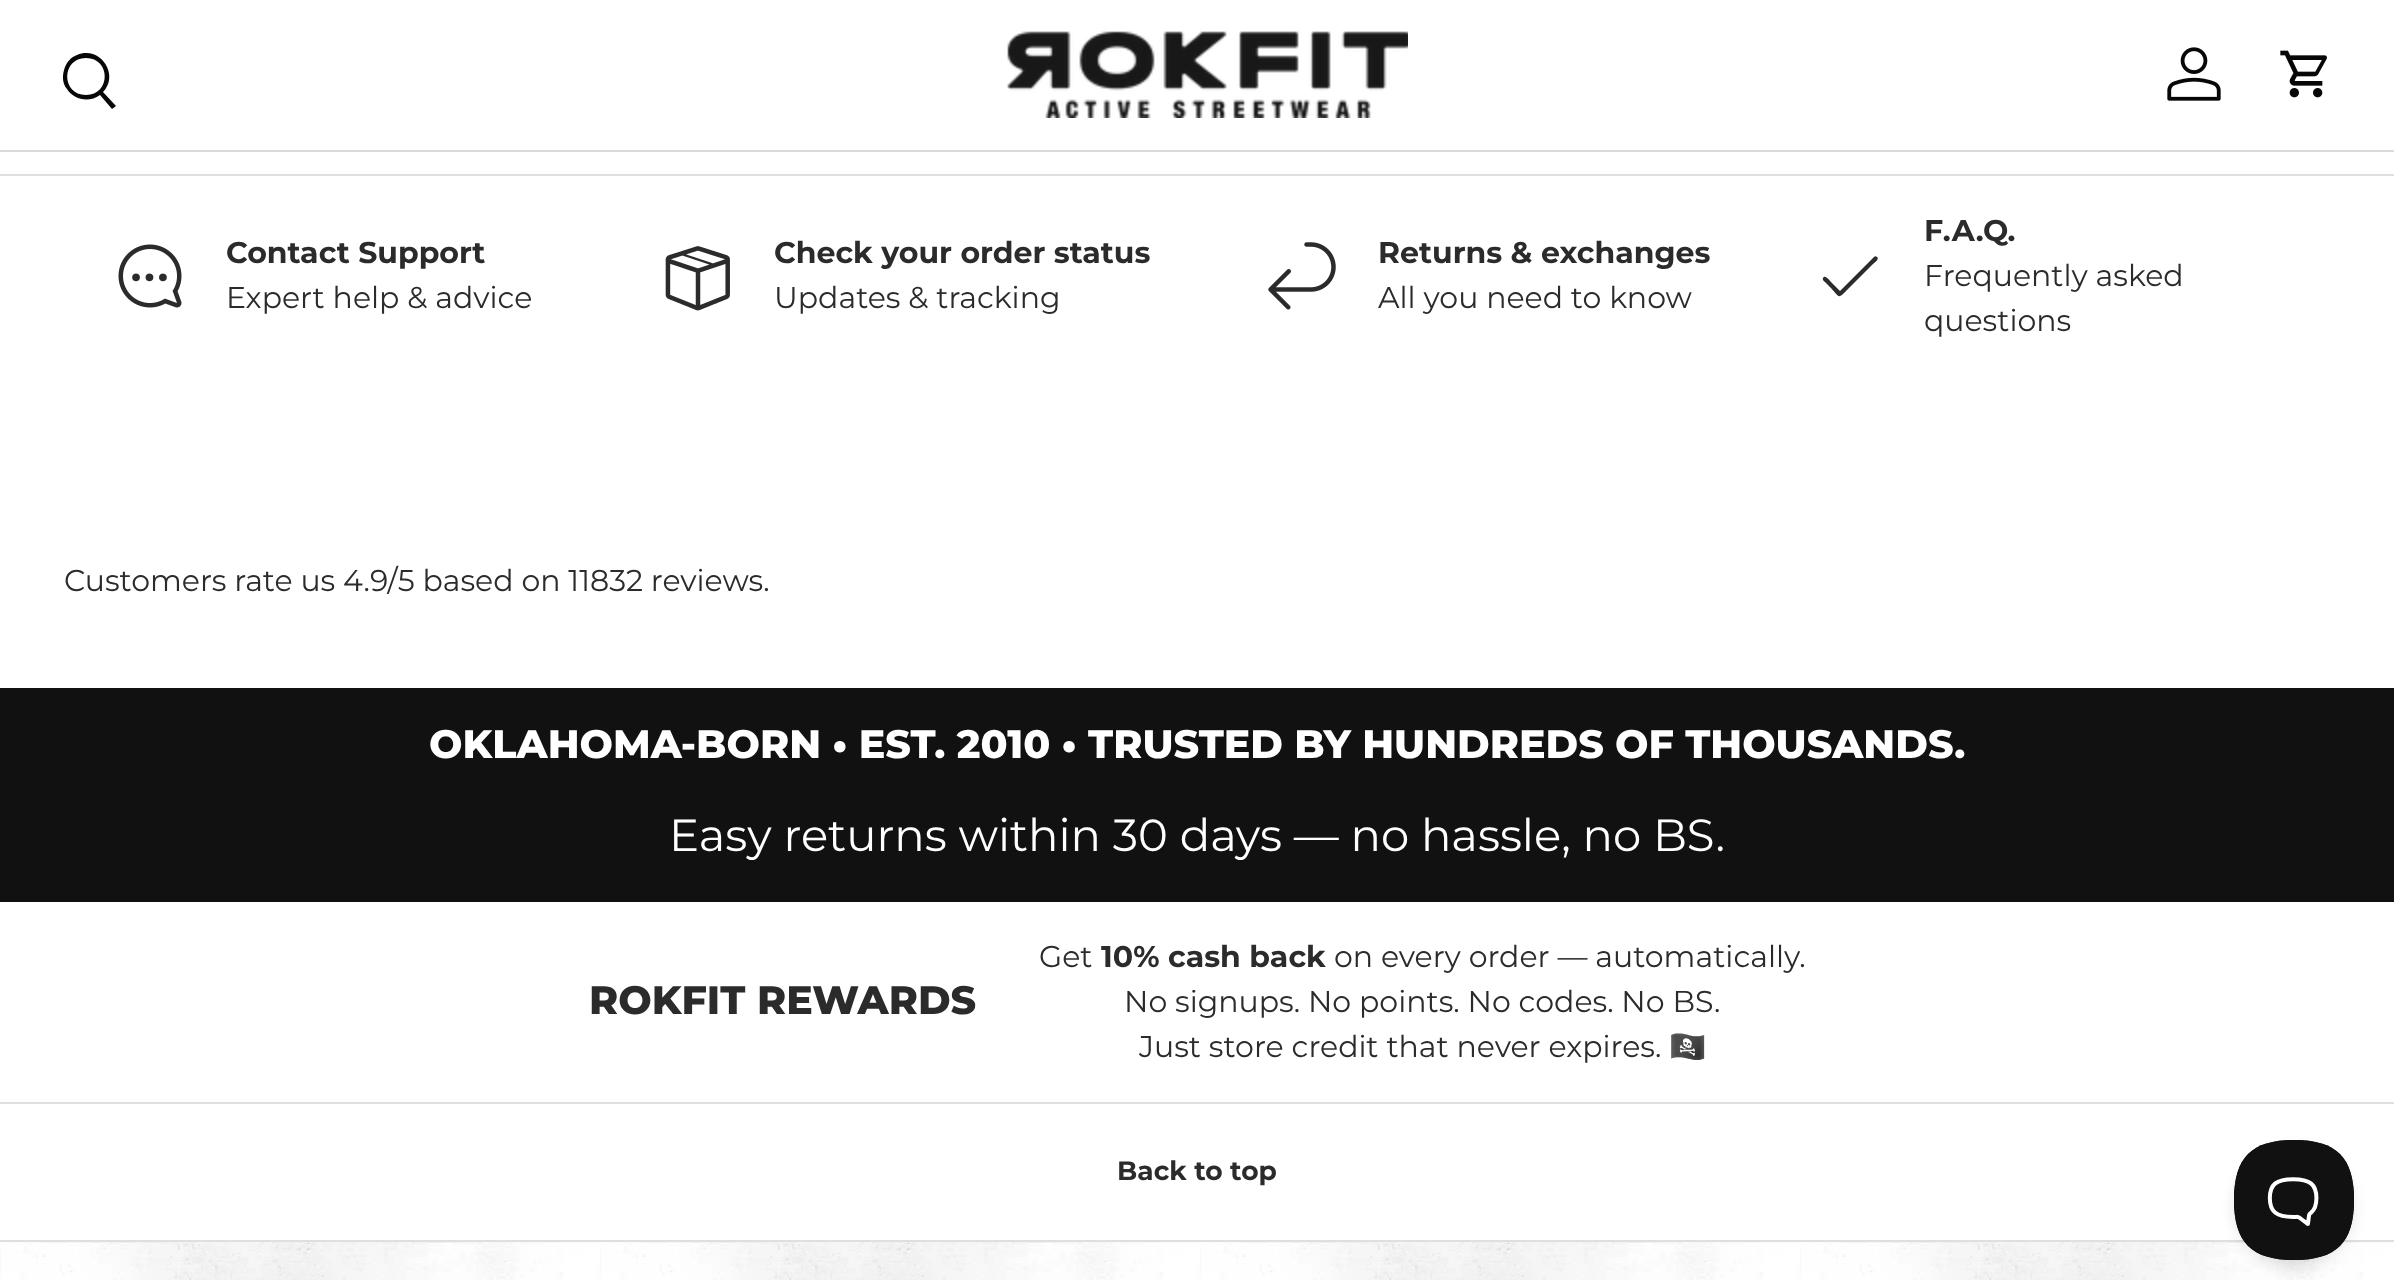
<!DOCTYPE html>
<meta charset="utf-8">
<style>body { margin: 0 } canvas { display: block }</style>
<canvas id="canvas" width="2394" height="1280"></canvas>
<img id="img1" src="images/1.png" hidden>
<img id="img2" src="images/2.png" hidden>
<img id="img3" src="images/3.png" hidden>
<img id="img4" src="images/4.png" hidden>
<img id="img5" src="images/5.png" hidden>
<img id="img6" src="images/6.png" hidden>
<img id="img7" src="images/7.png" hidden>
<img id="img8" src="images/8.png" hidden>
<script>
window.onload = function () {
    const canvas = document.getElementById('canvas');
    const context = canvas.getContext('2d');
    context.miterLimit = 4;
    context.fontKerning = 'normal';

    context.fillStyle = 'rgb(255, 255, 255)';
    context.fillRect(0, 0, 2394, 1280);
    context.fillStyle = 'rgb(218, 218, 218)';
    context.fillRect(0, 150, 2394, 2);
    context.fillStyle = 'rgb(7, 7, 7)';
    context.beginPath();
    context.moveTo(103, 92);
    context.lineTo(116, 106);
    context.lineTo(112, 109);
    context.lineTo(100, 95);
    context.bezierCurveTo(89, 103, 74, 100, 67, 89);
    context.bezierCurveTo(62, 83, 62, 75, 65, 67);
    context.bezierCurveTo(67, 62, 71, 57, 77, 55);
    context.bezierCurveTo(100, 45, 120, 75, 103, 92);
    context.closePath();
    context.moveTo(86, 95);
    context.bezierCurveTo(111, 95, 111, 58, 86, 58);
    context.bezierCurveTo(61, 58, 61, 95, 86, 95);
    context.closePath();
    context.fill();
    context.drawImage(document.getElementById('img1'), 1007, 31, 401, 87);
    context.drawImage(document.getElementById('img2'), 2167, 47, 54, 54);
    context.drawImage(document.getElementById('img3'), 2280, 50, 47, 48);
    context.fillStyle = 'rgb(223, 223, 223)';
    context.fillRect(0, 174, 2394, 2);
    context.drawImage(document.getElementById('img4'), 118, 244, 64, 64);
    context.drawImage(document.getElementById('img5'), 665, 246, 65, 65);
    context.drawImage(document.getElementById('img6'), 1268, 242, 68, 68);
    context.fillStyle = 'rgb(42, 43, 42)';
    context.beginPath();
    context.moveTo(1877, 257);
    context.bezierCurveTo(1880, 259, 1874, 263, 1871, 266);
    context.lineTo(1847, 290);
    context.bezierCurveTo(1838, 299, 1840, 298, 1831, 288);
    context.lineTo(1826, 283);
    context.bezierCurveTo(1825, 282, 1822, 280, 1823, 278);
    context.bezierCurveTo(1825, 274, 1830, 281, 1831, 282);
    context.lineTo(1840, 291);
    context.lineTo(1874, 257);
    context.bezierCurveTo(1875, 256, 1876, 256, 1877, 257);
    context.closePath();
    context.fill('evenodd');
    context.fillStyle = 'rgb(17, 17, 17)';
    context.fillRect(0, 688, 2394, 214);
    context.fillStyle = 'rgb(223, 223, 223)';
    context.fillRect(0, 1102, 2394, 2);
    context.fillRect(0, 1240, 2394, 2);
    context.drawImage(document.getElementById('img7'), 0, 1242, 2394, 38);
    context.fillStyle = 'rgba(0, 0, 0, 0.1)';
    context.filter = 'blur(7px)';
    context.beginPath();
    context.roundRect(2234, 1148, 120, 120, 60);
    context.fill();
    context.filter = 'none';
    context.drawImage(document.getElementById('img8'), 2234, 1140, 120, 120);
    context.font = 'bold 30px Montserrat';
    context.fillStyle = 'rgb(42, 43, 42)';
    context.fillText('Contact Support', 226, 263);
    context.font = '30px Montserrat';
    context.fillText('Expert help & advice', 226, 308);
    context.font = 'bold 30px Montserrat';
    context.fillText('Check your order status', 774, 263);
    context.font = '30px Montserrat';
    context.fillText('Updates & tracking', 774, 308);
    context.font = 'bold 30px Montserrat';
    context.fillText('Returns & exchanges', 1378, 263);
    context.font = '30px Montserrat';
    context.fillText('All you need to know', 1378, 308);
    context.font = 'bold 30px Montserrat';
    context.fillText('F.A.Q.', 1924, 241);
    context.font = '30px Montserrat';
    context.fillText('Frequently asked', 1924, 286);
    context.fillText('questions', 1924, 331);
    context.fillText('Customers rate us 4.9/5 based on 11832 reviews.', 64, 591);
    context.wordSpacing = '-0.25px';
    context.font = '800 39.55px Montserrat';
    context.fillStyle = 'rgb(255, 255, 255)';
    context.fillText('OKLAHOMA-BORN • EST. 2010 • TRUSTED BY HUNDREDS OF THOUSANDS.', 429, 758);
    context.wordSpacing = '0px';
    context.font = '45px Montserrat';
    context.fillText('Easy returns within 30 days — no hassle, no BS.', 669, 851);
    context.font = '800 39.55px Montserrat';
    context.fillStyle = 'rgb(42, 43, 42)';
    context.fillText('ROKFIT REWARDS', 589, 1014);
    context.font = '30px Montserrat';
    context.fillText('Get', 1039, 967);
    context.font = 'bold 30px Montserrat';
    context.fillText('10% cash back', 1101, 967);
    context.font = '30px Montserrat';
    context.fillText('on every order — automatically.', 1334, 967);
    context.fillText('No signups. No points. No codes. No BS.', 1124, 1012);
    context.fillText('Just store credit that never expires.', 1139, 1057);
    context.font = '30px Noto Color Emoji';
    context.fillText('🏴‍☠️', 1669, 1057);
    context.font = 'bold 26.5px Montserrat';
    context.fillText('Back to top', 1117, 1180);
};
</script>
